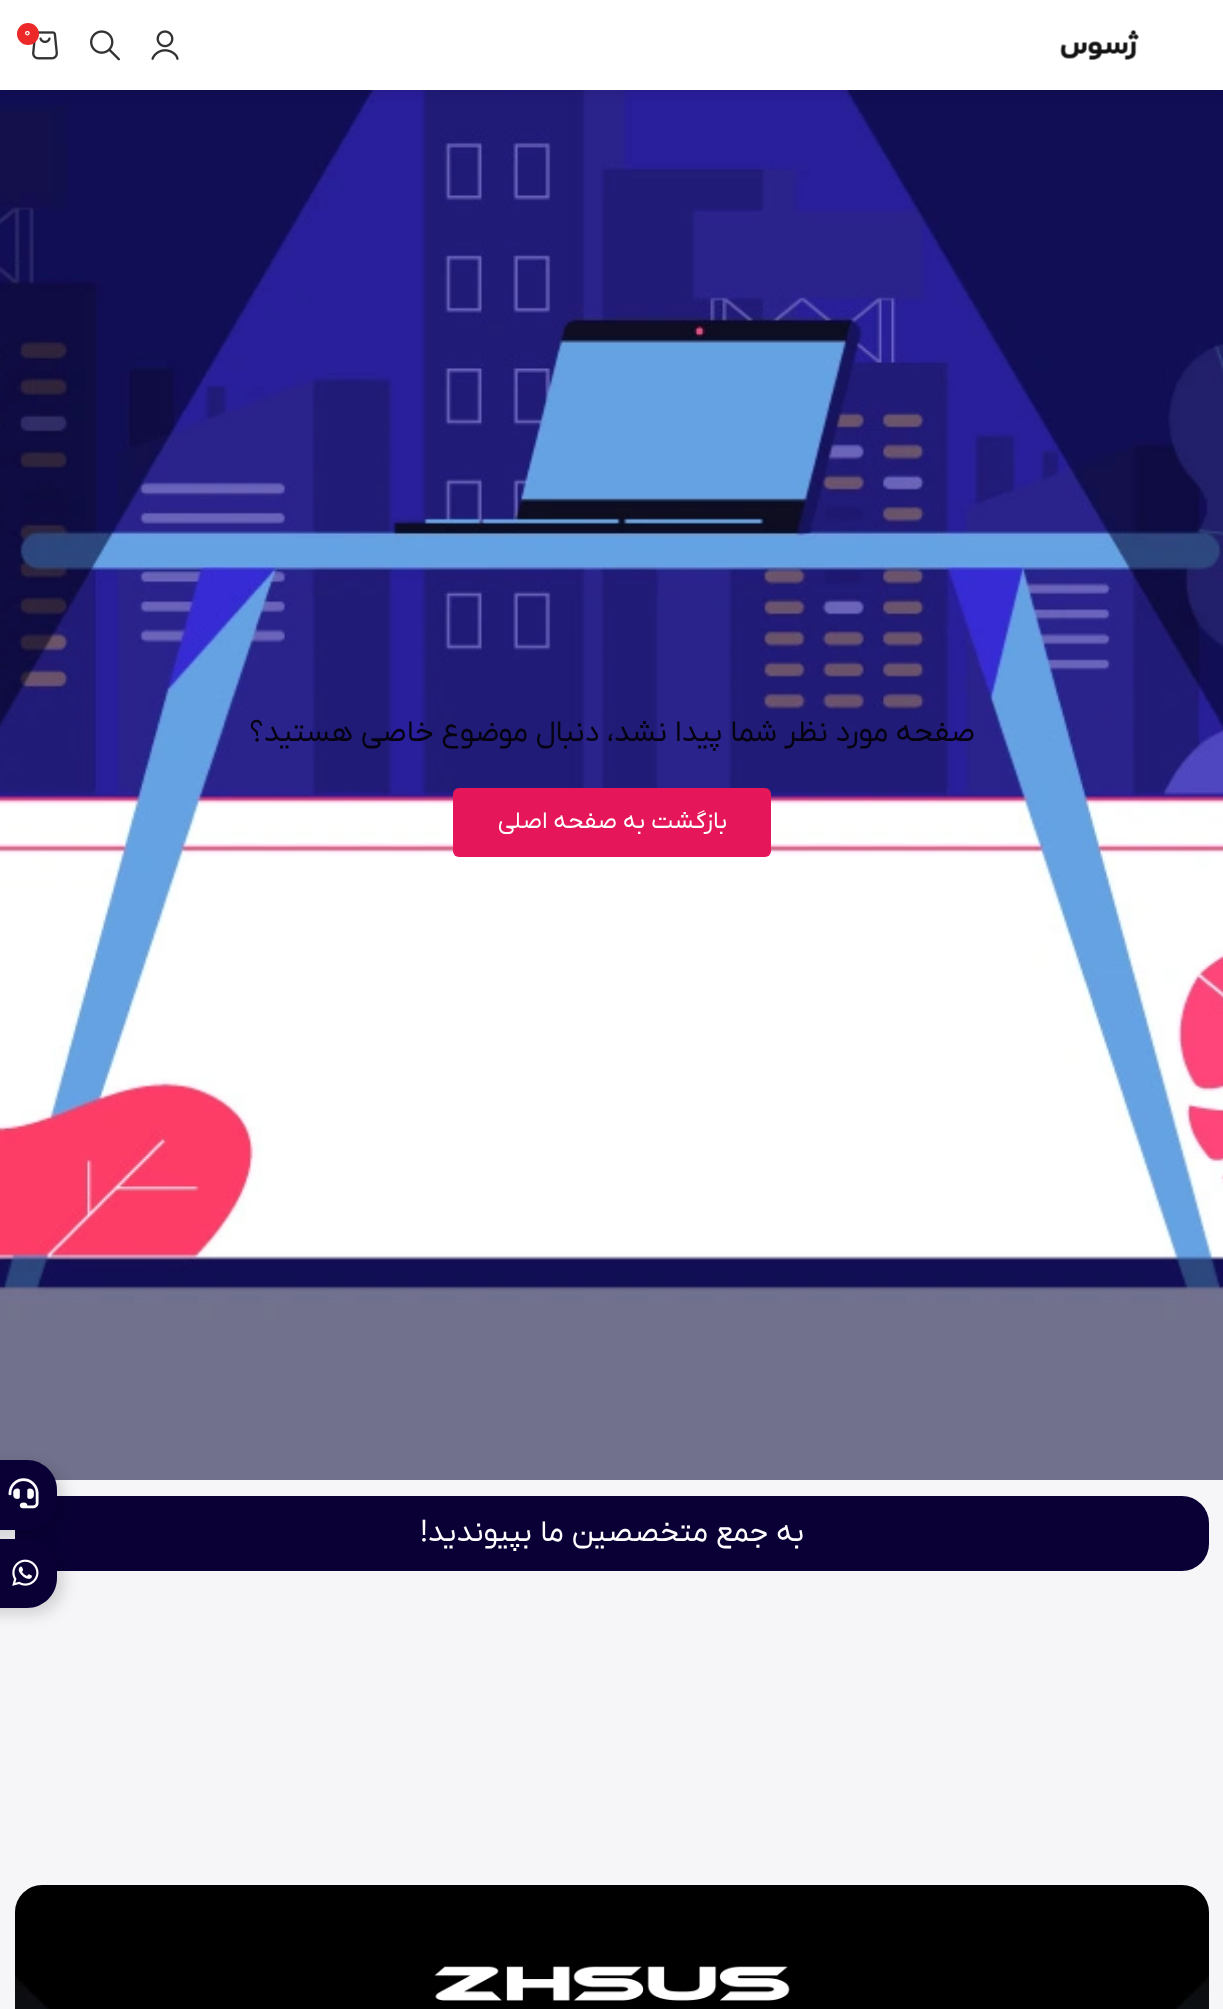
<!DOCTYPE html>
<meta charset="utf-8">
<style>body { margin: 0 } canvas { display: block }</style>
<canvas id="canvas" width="1223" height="2009"></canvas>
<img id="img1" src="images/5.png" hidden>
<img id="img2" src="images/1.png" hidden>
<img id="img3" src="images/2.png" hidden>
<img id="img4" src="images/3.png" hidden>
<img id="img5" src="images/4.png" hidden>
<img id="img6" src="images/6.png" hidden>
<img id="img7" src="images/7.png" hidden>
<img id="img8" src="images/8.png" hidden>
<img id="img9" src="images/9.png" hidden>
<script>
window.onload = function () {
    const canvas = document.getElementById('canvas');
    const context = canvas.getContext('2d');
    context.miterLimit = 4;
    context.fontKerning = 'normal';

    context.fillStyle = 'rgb(246, 245, 248)';
    context.fillRect(0, 0, 1223, 2009);
    context.drawImage(document.getElementById('img1'), 0, 90, 1223, 1390);
    context.fillStyle = 'rgba(0, 0, 0, 0.1)';
    context.filter = 'blur(6px)';
    context.beginPath();
    context.rect(0, 2, 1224, 90);
    context.fill();
    context.filter = 'none';
    context.fillStyle = 'rgb(255, 255, 255)';
    context.fillRect(0, 0, 1223, 90);
    context.drawImage(document.getElementById('img2'), 1060, 29, 79, 32);
    context.drawImage(document.getElementById('img3'), 151, 30, 28, 30);
    context.drawImage(document.getElementById('img4'), 90, 30, 30, 31);
    context.drawImage(document.getElementById('img5'), 32, 31, 26, 29);
    context.fillStyle = 'rgb(237, 40, 40)';
    context.beginPath();
    context.arc(28, 34, 11, 0, 2 * Math.PI);
    context.fill();
    context.fillStyle = 'rgb(229, 22, 90)';
    context.beginPath();
    context.roundRect(453, 788, 318, 69, 6);
    context.fill();
    context.fillStyle = 'rgb(10, 0, 54)';
    context.beginPath();
    context.roundRect(15, 1496, 1194, 75, 27);
    context.fill();
    context.drawImage(document.getElementById('img6'), 15, 1885, 1194, 124);
    context.drawImage(document.getElementById('img7'), 434, 1966, 356, 35);
    context.fillStyle = 'rgba(0, 0, 0, 0.15)';
    context.filter = 'blur(7.5px)';
    context.beginPath();
    context.roundRect(-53, 1466, 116, 70, 30);
    context.fill();
    context.filter = 'none';
    context.fillStyle = 'rgb(10, 0, 54)';
    context.beginPath();
    context.moveTo(-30, 1460);
    context.lineTo(27, 1460);
    context.bezierCurveTo(43.5, 1460, 57, 1473.5, 57, 1490);
    context.lineTo(57, 1500);
    context.bezierCurveTo(57, 1516.5, 43.5, 1530, 27, 1530);
    context.lineTo(-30, 1530);
    context.closePath();
    context.fill();
    context.drawImage(document.getElementById('img8'), 8, 1478, 31, 31);
    context.fillStyle = 'rgba(0, 0, 0, 0.15)';
    context.filter = 'blur(7.5px)';
    context.beginPath();
    context.roundRect(-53, 1545, 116, 69, 30);
    context.fill();
    context.filter = 'none';
    context.fillStyle = 'rgb(10, 0, 54)';
    context.beginPath();
    context.moveTo(-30, 1539);
    context.lineTo(27, 1539);
    context.bezierCurveTo(43.5, 1539, 57, 1552.5, 57, 1569);
    context.lineTo(57, 1578);
    context.bezierCurveTo(57, 1594.5, 43.5, 1608, 27, 1608);
    context.lineTo(-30, 1608);
    context.closePath();
    context.fill();
    context.drawImage(document.getElementById('img9'), 12, 1559, 27, 27);
    context.font = '14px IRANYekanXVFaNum';
    context.fillStyle = 'rgb(255, 255, 255)';
    context.fillText('0', 24, 36);
    context.direction = 'rtl';
    context.font = '30px IRANYekanXVFaNum';
    context.fillStyle = 'rgb(4, 3, 15)';
    context.fillText('صفحه مورد نظر شما پیدا نشد، دنبال موضوع خاصی هستید؟', 975, 741);
    context.font = '24px IRANYekanXVFaNum';
    context.fillStyle = 'rgb(255, 255, 255)';
    context.fillText('بازگشت به صفحه اصلی', 727, 828);
    context.wordSpacing = '0.5px';
    context.font = '30px IRANYekanXVFaNum';
    context.fillText('به جمع متخصصین ما بپیوندید!', 804, 1541);
};
</script>
